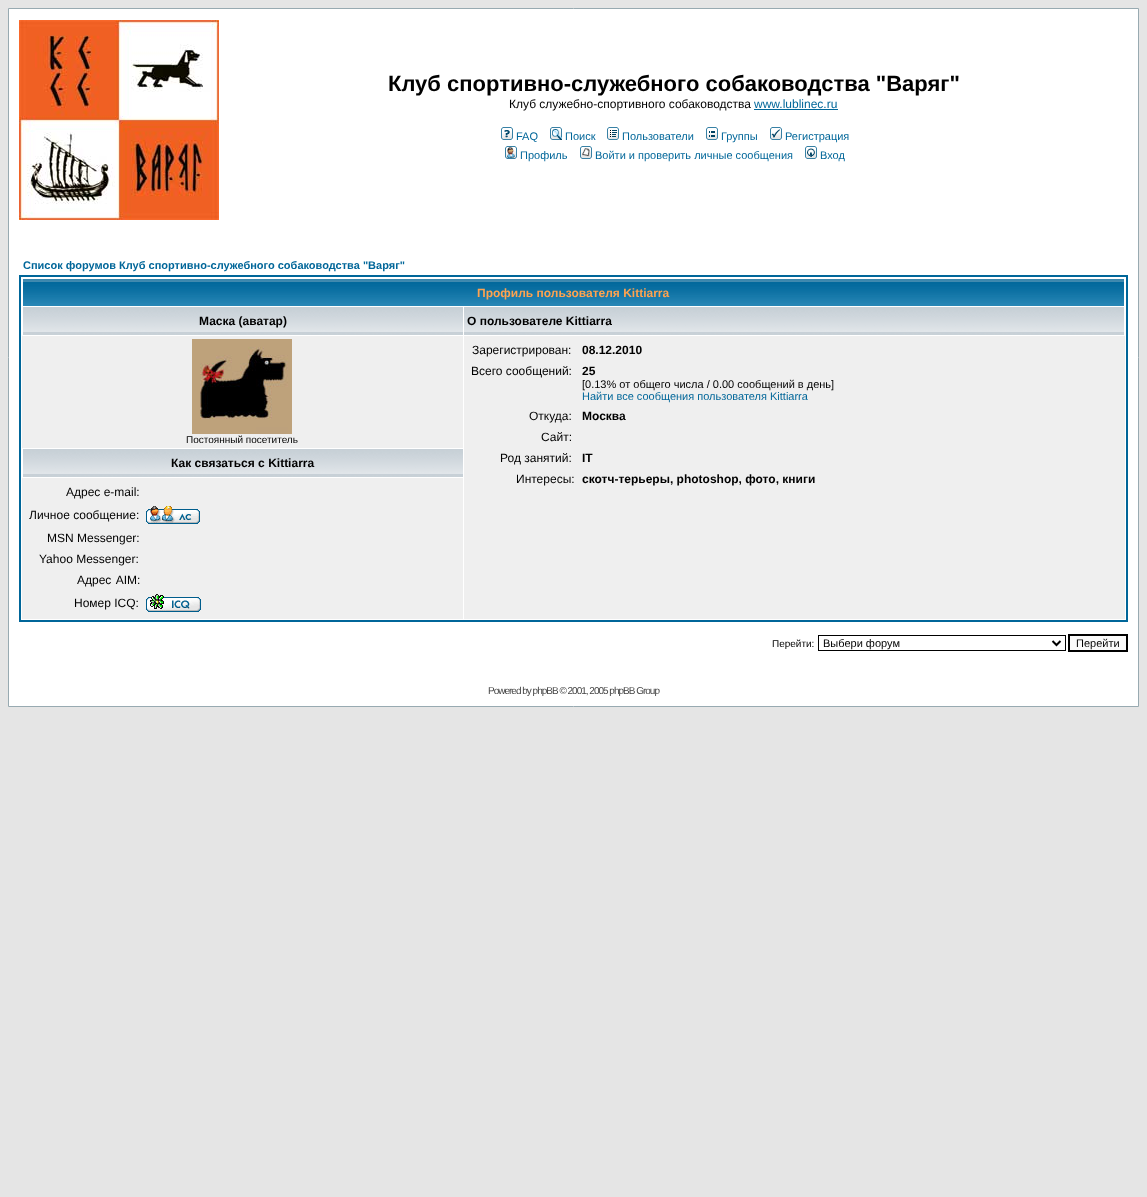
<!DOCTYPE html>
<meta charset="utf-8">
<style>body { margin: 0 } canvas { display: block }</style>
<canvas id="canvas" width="1147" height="1197"></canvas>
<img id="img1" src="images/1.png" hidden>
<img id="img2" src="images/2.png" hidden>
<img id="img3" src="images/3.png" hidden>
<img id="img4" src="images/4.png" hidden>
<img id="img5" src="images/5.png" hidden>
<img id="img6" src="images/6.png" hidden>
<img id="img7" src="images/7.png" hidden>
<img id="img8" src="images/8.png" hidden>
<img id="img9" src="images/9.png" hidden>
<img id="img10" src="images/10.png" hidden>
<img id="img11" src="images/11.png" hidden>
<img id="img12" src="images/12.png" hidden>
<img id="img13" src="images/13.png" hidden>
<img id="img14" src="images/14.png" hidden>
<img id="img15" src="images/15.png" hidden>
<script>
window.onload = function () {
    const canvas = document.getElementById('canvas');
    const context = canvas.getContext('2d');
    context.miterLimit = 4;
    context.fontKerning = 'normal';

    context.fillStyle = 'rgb(229, 229, 229)';
    context.fillRect(0, 0, 1147, 1197);
    context.fillStyle = 'rgb(255, 255, 255)';
    context.beginPath();
    context.rect(8.5, 8.5, 1130, 698);
    context.fill();
    context.strokeStyle = 'rgb(152, 170, 177)';
    context.stroke();
    context.drawImage(document.getElementById('img1'), 19, 20, 200, 200);
    context.fillStyle = 'rgb(0, 102, 153)';
    context.fillRect(754, 109, 84, 1);
    context.drawImage(document.getElementById('img2'), 501, 127, 12, 13);
    context.drawImage(document.getElementById('img3'), 550, 127, 12, 13);
    context.drawImage(document.getElementById('img4'), 607, 127, 12, 13);
    context.drawImage(document.getElementById('img5'), 706, 127, 12, 13);
    context.drawImage(document.getElementById('img6'), 770, 127, 12, 13);
    context.drawImage(document.getElementById('img7'), 505, 146, 12, 13);
    context.drawImage(document.getElementById('img8'), 580, 146, 12, 13);
    context.drawImage(document.getElementById('img9'), 805, 146, 12, 13);
    context.strokeStyle = 'rgb(0, 102, 153)';
    context.lineWidth = 2;
    context.strokeRect(20, 276, 1107, 345);
    context.drawImage(document.getElementById('img10'), 23, 279, 1101, 27);
    context.drawImage(document.getElementById('img11'), 23, 307, 440, 28);
    context.drawImage(document.getElementById('img12'), 464, 307, 660, 28);
    context.fillStyle = 'rgb(239, 239, 239)';
    context.fillRect(22, 336, 441, 112);
    context.drawImage(document.getElementById('img13'), 192, 339, 100, 95);
    context.fillRect(464, 336, 661, 283);
    context.drawImage(document.getElementById('img11'), 23, 449, 440, 28);
    context.fillRect(22, 478, 441, 141);
    context.drawImage(document.getElementById('img14'), 146, 506, 54, 18);
    context.drawImage(document.getElementById('img15'), 146, 594, 55, 18);
    context.strokeStyle = 'rgb(0, 0, 0)';
    context.lineWidth = 1;
    context.strokeRect(818.5, 635.5, 247, 15);
    context.beginPath();
    context.moveTo(1052.5, 641);
    context.lineTo(1056.5, 645);
    context.lineTo(1060.5, 641);
    context.lineWidth = 2;
    context.stroke();
    context.fillStyle = 'rgb(250, 250, 250)';
    context.beginPath();
    context.rect(1069, 635, 58, 16);
    context.fill();
    context.stroke();
    context.font = 'bold 22px Liberation Sans';
    context.fillStyle = 'rgb(0, 0, 0)';
    context.fillText('Клуб спортивно-служебного собаководства "Варяг"', 388, 91);
    context.font = '12px Liberation Sans';
    context.fillText('Клуб служебно-спортивного собаководства', 509, 108);
    context.fillStyle = 'rgb(0, 102, 153)';
    context.fillText('www.lublinec.ru', 754, 108);
    context.font = '11px Liberation Sans';
    context.fillText('FAQ', 516, 140);
    context.fillText('Поиск', 565, 140);
    context.fillText('Пользователи', 622, 140);
    context.fillText('Группы', 721, 140);
    context.fillText('Регистрация', 785, 140);
    context.fillText('Профиль', 520, 159);
    context.fillText('Войти и проверить личные сообщения', 595, 159);
    context.fillText('Вход', 820, 159);
    context.font = 'bold 11px Liberation Sans';
    context.fillText('Список форумов Клуб спортивно-служебного собаководства "Варяг"', 23, 269);
    context.font = 'bold 12px Liberation Sans';
    context.fillStyle = 'rgb(255, 163, 79)';
    context.fillText('Профиль пользователя Kittiarra', 477, 297);
    context.fillStyle = 'rgb(0, 0, 0)';
    context.fillText('Маска (аватар)', 199, 325);
    context.fillText('О пользователе Kittiarra', 467, 325);
    context.font = '10px Liberation Sans';
    context.fillText('Постоянный посетитель', 186, 443);
    context.font = '12px Liberation Sans';
    context.fillText('Зарегистрирован:', 472, 354);
    context.font = 'bold 12px Liberation Sans';
    context.fillText('08.12.2010', 582, 354);
    context.font = '12px Liberation Sans';
    context.fillText('Всего сообщений:', 471, 375);
    context.font = 'bold 12px Liberation Sans';
    context.fillText('25', 582, 375);
    context.font = '11px Liberation Sans';
    context.fillText('[0.13% от общего числа / 0.00 сообщений в день]', 582, 388);
    context.fillStyle = 'rgb(0, 102, 153)';
    context.fillText('Найти все сообщения пользователя Kittiarra', 582, 400);
    context.font = '12px Liberation Sans';
    context.fillStyle = 'rgb(0, 0, 0)';
    context.fillText('Откуда:', 529, 420);
    context.font = 'bold 12px Liberation Sans';
    context.fillText('Москва', 582, 420);
    context.font = '12px Liberation Sans';
    context.fillText('Сайт:', 541, 441);
    context.fillText('Род занятий:', 500, 462);
    context.font = 'bold 12px Liberation Sans';
    context.fillText('IT', 582, 462);
    context.font = '12px Liberation Sans';
    context.fillText('Интересы:', 516, 483);
    context.font = 'bold 12px Liberation Sans';
    context.fillText('скотч-терьеры, photoshop, фото, книги', 582, 483);
    context.fillText('Как связаться с Kittiarra', 171, 467);
    context.font = '12px Liberation Sans';
    context.fillText('Адрес e-mail:', 66, 496);
    context.fillText('Личное сообщение:', 29, 519);
    context.fillText('MSN Messenger:', 47, 542);
    context.fillText('Yahoo Messenger:', 39, 563);
    context.wordSpacing = '1px';
    context.fillText('Адрес AIM:', 77, 584);
    context.wordSpacing = '0px';
    context.fillText('Номер ICQ:', 74, 607);
    context.font = '10px Liberation Sans';
    context.fillText('Перейти:', 772, 647);
    context.font = '11px Liberation Sans';
    context.fillText('Выбери форум', 823, 647);
    context.fillText('Перейти', 1076, 647);
    context.letterSpacing = '-1px';
    context.font = '10px Liberation Sans';
    context.fillStyle = 'rgb(68, 68, 68)';
    context.fillText('Powered by phpBB © 2001, 2005 phpBB Group', 488, 694);
};
</script>
